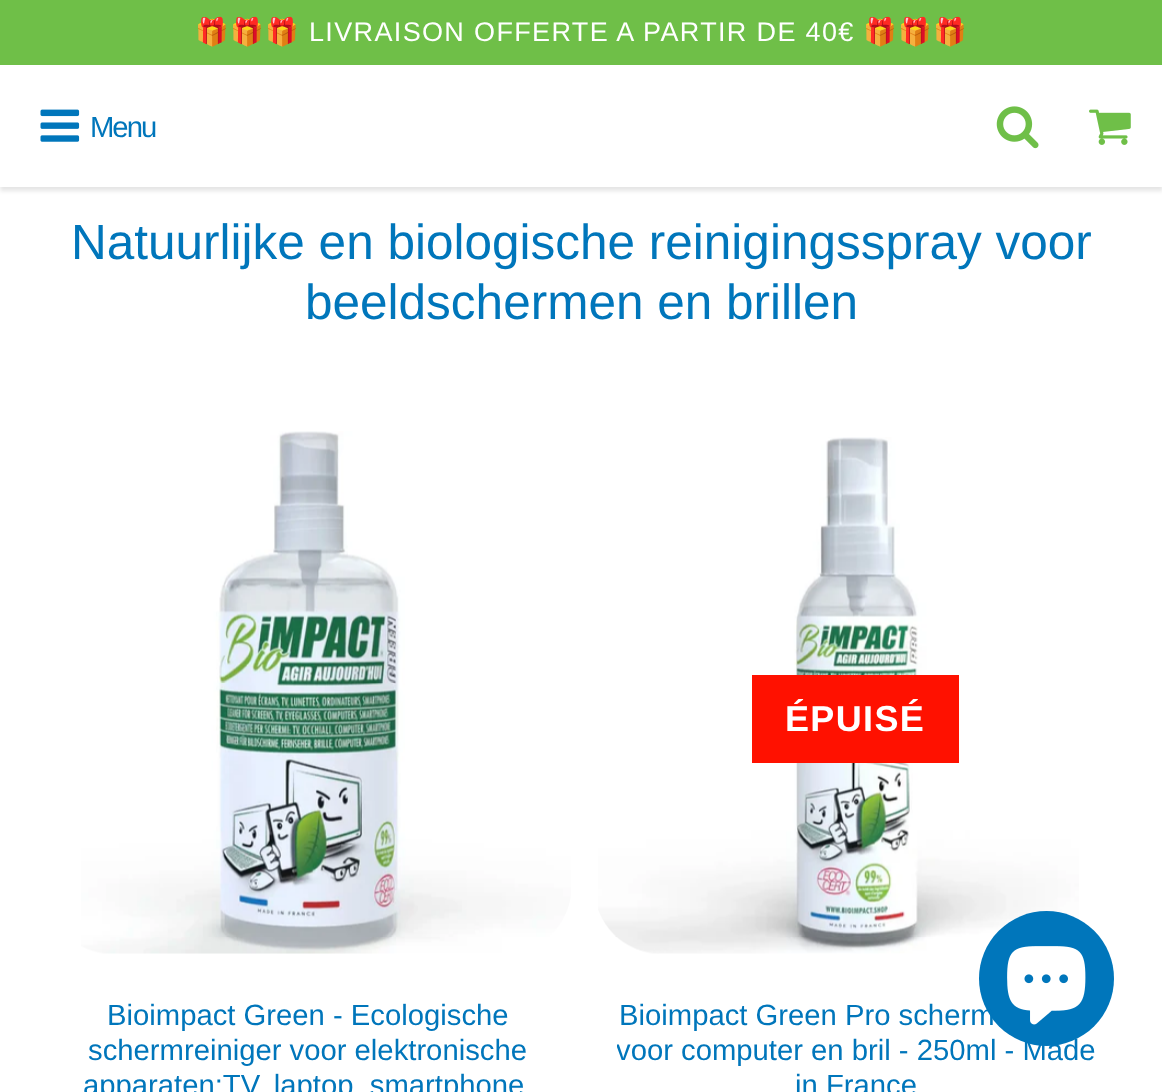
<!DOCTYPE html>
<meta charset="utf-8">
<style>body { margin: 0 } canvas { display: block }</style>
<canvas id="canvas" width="1162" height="1092"></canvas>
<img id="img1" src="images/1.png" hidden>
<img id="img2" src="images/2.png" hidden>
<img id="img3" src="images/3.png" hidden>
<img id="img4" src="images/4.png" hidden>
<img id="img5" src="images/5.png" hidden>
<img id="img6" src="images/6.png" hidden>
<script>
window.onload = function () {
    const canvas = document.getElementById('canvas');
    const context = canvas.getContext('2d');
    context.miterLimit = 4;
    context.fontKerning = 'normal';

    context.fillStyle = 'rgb(255, 255, 255)';
    context.fillRect(0, 0, 1162, 1092);
    context.fillStyle = 'rgba(0, 0, 0, 0.1)';
    context.filter = 'blur(2px)';
    context.beginPath();
    context.rect(0, 70, 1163, 121);
    context.fill();
    context.filter = 'none';
    context.fillStyle = 'rgb(111, 191, 72)';
    context.fillRect(0, 0, 1162, 65);
    context.fillStyle = 'rgb(255, 255, 255)';
    context.fillRect(0, 67, 1162, 120);
    context.drawImage(document.getElementById('img1'), 40, 109, 40, 33);
    context.drawImage(document.getElementById('img2'), 996, 106, 43, 43);
    context.drawImage(document.getElementById('img3'), 1089, 109, 42, 36);
    context.drawImage(document.getElementById('img4'), 81, 431, 490, 523);
    context.drawImage(document.getElementById('img5'), 598, 437, 481, 517);
    context.fillStyle = 'rgb(255, 17, 0)';
    context.fillRect(752, 675, 207, 88);
    context.fillStyle = 'rgb(0, 118, 187)';
    context.beginPath();
    context.arc(1046.5, 978.5, 67.5, 0, 2 * Math.PI);
    context.fill();
    context.drawImage(document.getElementById('img6'), 1007, 946, 79, 79);
    context.letterSpacing = '1.35px';
    context.font = '27px Noto Color Emoji';
    context.fillStyle = 'rgb(255, 255, 255)';
    context.fillText('🎁🎁🎁', 195, 41);
    context.font = '27px Liberation Sans';
    context.fillText('LIVRAISON OFFERTE A PARTIR DE 40€', 309, 41);
    context.font = '27px Noto Color Emoji';
    context.fillText('🎁🎁🎁', 863, 41);
    context.letterSpacing = '-2px';
    context.font = '29.25px Liberation Sans';
    context.fillStyle = 'rgb(0, 118, 187)';
    context.fillText('Menu', 90, 137);
    context.letterSpacing = '0px';
    context.font = '49.5px Liberation Sans';
    context.fillText('Natuurlijke en biologische reinigingsspray voor', 71, 259);
    context.fillText('beeldschermen en brillen', 305, 319);
    context.font = '29.25px Liberation Sans';
    context.fillText('Bioimpact Green - Ecologische', 107, 1025);
    context.fillText('schermreiniger voor elektronische', 88, 1060);
    context.fillText('apparaten:TV, laptop, smartphone', 83, 1095);
    context.letterSpacing = '1.35px';
    context.font = 'bold 36px Liberation Sans';
    context.fillStyle = 'rgb(255, 255, 255)';
    context.fillText('ÉPUISÉ', 785, 731);
    context.letterSpacing = '0px';
    context.font = '29.25px Liberation Sans';
    context.fillStyle = 'rgb(0, 118, 187)';
    context.fillText('Bioimpact Green Pro scherm', 619, 1025);
    context.save();
    context.beginPath();
    context.rect(617, 999, 479, 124);
    context.clip();
    context.fillText('voor computer en bril - 250ml - Made', 616, 1060);
    context.restore();
    context.fillText('in France', 795, 1095);
};
</script>
